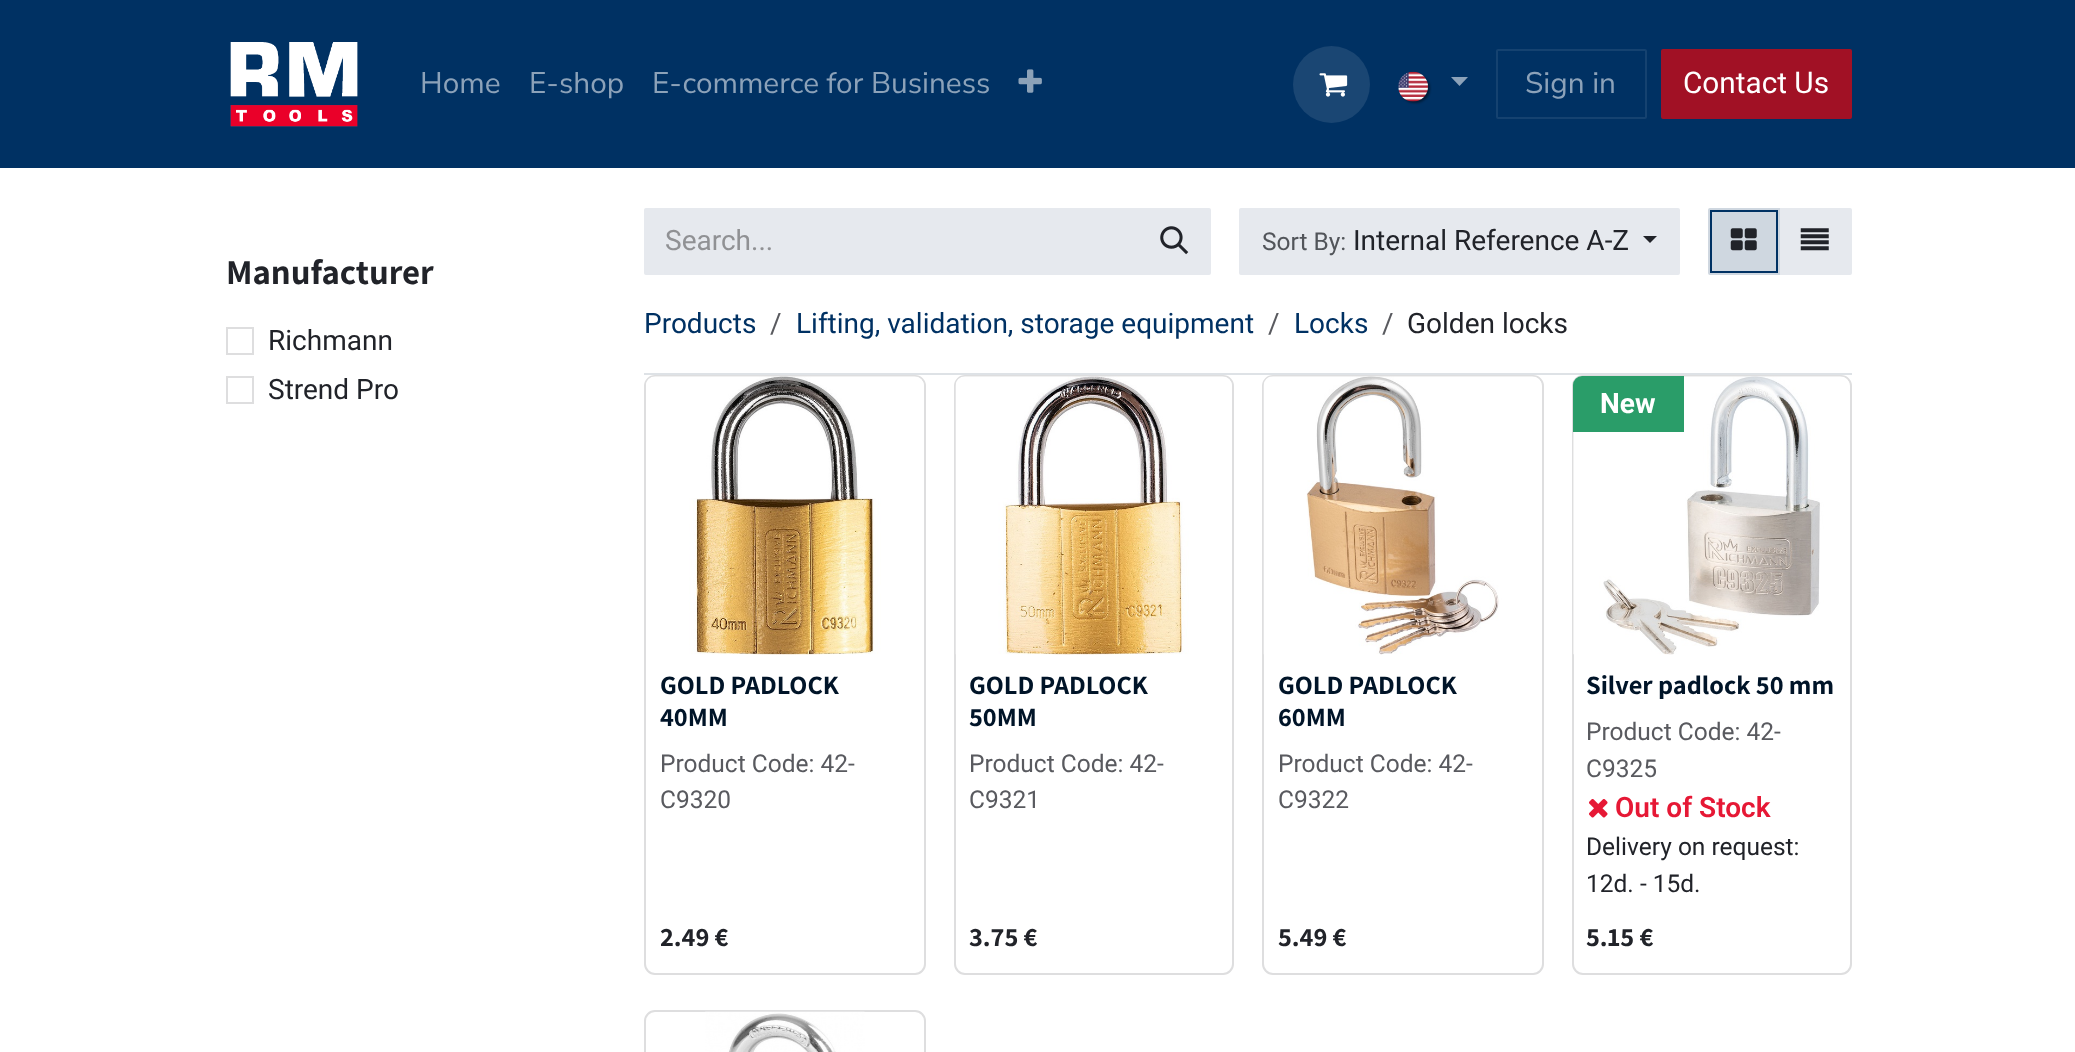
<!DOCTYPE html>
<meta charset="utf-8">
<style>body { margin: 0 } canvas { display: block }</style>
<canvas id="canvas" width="2075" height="1052"></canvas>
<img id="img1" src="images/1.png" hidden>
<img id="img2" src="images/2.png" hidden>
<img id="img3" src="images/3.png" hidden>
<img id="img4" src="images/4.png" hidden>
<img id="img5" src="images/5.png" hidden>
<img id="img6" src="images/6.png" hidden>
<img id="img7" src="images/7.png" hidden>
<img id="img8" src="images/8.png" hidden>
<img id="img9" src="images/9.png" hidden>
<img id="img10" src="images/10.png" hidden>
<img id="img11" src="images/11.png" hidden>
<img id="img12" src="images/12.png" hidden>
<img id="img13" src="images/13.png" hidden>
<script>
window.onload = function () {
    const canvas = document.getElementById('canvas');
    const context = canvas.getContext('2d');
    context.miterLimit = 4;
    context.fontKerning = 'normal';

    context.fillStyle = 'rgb(255, 255, 255)';
    context.fillRect(0, 0, 2075, 1052);
    context.fillStyle = 'rgb(0, 49, 99)';
    context.fillRect(0, 0, 2075, 168);
    context.drawImage(document.getElementById('img1'), 230, 42, 128, 85);
    context.drawImage(document.getElementById('img2'), 1018, 69, 24, 24);
    context.fillStyle = 'rgb(26, 70, 115)';
    context.beginPath();
    context.arc(1331.5, 84.5, 38.5, 0, 2 * Math.PI);
    context.fill();
    context.drawImage(document.getElementById('img3'), 1319, 73, 29, 24);
    context.fillStyle = 'rgba(0, 0, 0, 0.43)';
    context.filter = 'blur(1px)';
    context.beginPath();
    context.roundRect(1400, 74, 30, 29, 14.5);
    context.fill();
    context.filter = 'none';
    context.drawImage(document.getElementById('img4'), 1398, 71, 30, 31);
    context.fillStyle = 'rgb(140, 162, 185)';
    context.beginPath();
    context.moveTo(1451, 77);
    context.lineTo(1468, 77);
    context.lineTo(1459.5, 86);
    context.closePath();
    context.fill();
    context.beginPath();
    context.roundRect(1497, 50, 149, 68, 1);
    context.strokeStyle = 'rgb(21, 66, 112)';
    context.lineWidth = 2;
    context.stroke();
    context.fillStyle = 'rgb(161, 17, 37)';
    context.beginPath();
    context.roundRect(1662, 50, 189, 68, 1);
    context.fill();
    context.strokeStyle = 'rgb(161, 17, 37)';
    context.stroke();
    context.strokeStyle = 'rgb(222, 222, 223)';
    context.strokeRect(227, 328, 26, 26);
    context.strokeRect(227, 377, 26, 26);
    context.fillStyle = 'rgb(230, 233, 238)';
    context.beginPath();
    context.roundRect(644, 208, 495, 67, [2, 0, 0, 2]);
    context.fill();
    context.beginPath();
    context.roundRect(1139, 209, 71, 65, [0, 1, 1, 0]);
    context.fill();
    context.strokeStyle = 'rgb(230, 233, 238)';
    context.stroke();
    context.drawImage(document.getElementById('img5'), 1160, 226, 29, 29);
    context.beginPath();
    context.roundRect(1240, 209, 439, 65, 1);
    context.fill();
    context.stroke();
    context.fillStyle = 'rgb(33, 35, 41)';
    context.beginPath();
    context.moveTo(1643, 236);
    context.lineTo(1657, 236);
    context.lineTo(1650, 243);
    context.closePath();
    context.fill();
    context.fillStyle = 'rgb(230, 233, 238)';
    context.beginPath();
    context.roundRect(1779, 209, 72, 65, [0, 1, 1, 0]);
    context.fill();
    context.stroke();
    context.fillStyle = 'rgb(207, 215, 224)';
    context.beginPath();
    context.roundRect(1708, 208, 72, 67, [2, 0, 0, 2]);
    context.fill();
    context.strokeStyle = 'rgb(0, 49, 99)';
    context.strokeRect(1711, 211, 66, 61);
    context.drawImage(document.getElementById('img6'), 1730, 228, 27, 23);
    context.drawImage(document.getElementById('img7'), 1800, 228, 29, 23);
    context.fillStyle = 'rgb(222, 226, 230)';
    context.fillRect(644, 373, 1208, 2);
    context.beginPath();
    context.roundRect(645, 376, 280, 598, 10);
    context.strokeStyle = 'rgb(222, 222, 223)';
    context.stroke();
    context.drawImage(document.getElementById('img8'), 646, 376, 278, 279);
    context.beginPath();
    context.roundRect(955, 376, 278, 598, 10);
    context.stroke();
    context.drawImage(document.getElementById('img9'), 955, 376, 277, 279);
    context.beginPath();
    context.roundRect(1263, 376, 280, 598, 10);
    context.stroke();
    context.drawImage(document.getElementById('img10'), 1263, 376, 278, 279);
    context.beginPath();
    context.roundRect(1573, 376, 278, 598, 10);
    context.stroke();
    context.drawImage(document.getElementById('img11'), 1573, 376, 276, 279);
    context.fillStyle = 'rgb(42, 157, 105)';
    context.beginPath();
    context.roundRect(1573, 376, 111, 56, [9, 0, 0, 0]);
    context.fill();
    context.drawImage(document.getElementById('img12'), 1589, 799, 19, 19);
    context.beginPath();
    context.roundRect(645, 1011, 280, 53, 10);
    context.stroke();
    context.drawImage(document.getElementById('img13'), 705, 1011, 160, 41);
    context.font = '29.75px Nunito Sans';
    context.fillStyle = 'rgb(140, 162, 185)';
    context.fillText('Home', 420, 93);
    context.fillText('E-shop', 529, 93);
    context.fillText('E-commerce for Business', 652, 93);
    context.fillText('Sign in', 1525, 93);
    context.font = '29.75px Roboto';
    context.fillStyle = 'rgb(255, 255, 255)';
    context.fillText('Contact Us', 1683, 93);
    context.font = 'bold 35px Assistant';
    context.fillStyle = 'rgb(33, 35, 41)';
    context.fillText('Manufacturer', 226, 284);
    context.font = '28px Roboto';
    context.fillText('Richmann', 268, 350);
    context.fillText('Strend Pro', 268, 399);
    context.fillStyle = 'rgb(144, 145, 148)';
    context.fillText('Search...', 665, 250);
    context.font = '24.5px Roboto';
    context.fillStyle = 'rgb(82, 85, 90)';
    context.fillText('Sort By:', 1262, 250);
    context.font = '28px Roboto';
    context.fillStyle = 'rgb(33, 35, 41)';
    context.fillText('Internal Reference A-Z', 1353, 250);
    context.fillStyle = 'rgb(0, 49, 99)';
    context.fillText('Products', 644, 333);
    context.fillStyle = 'rgb(89, 90, 95)';
    context.fillText('/', 770, 333);
    context.fillStyle = 'rgb(0, 49, 99)';
    context.fillText('Lifting, validation, storage equipment', 796, 333);
    context.fillStyle = 'rgb(89, 90, 95)';
    context.fillText('/', 1268, 333);
    context.fillStyle = 'rgb(0, 49, 99)';
    context.fillText('Locks', 1294, 333);
    context.fillStyle = 'rgb(89, 90, 95)';
    context.fillText('/', 1382, 333);
    context.fillStyle = 'rgb(33, 35, 41)';
    context.fillText('Golden locks', 1407, 333);
    context.font = 'bold 26.5px Assistant';
    context.fillStyle = 'rgb(0, 20, 40)';
    context.fillText('GOLD PADLOCK', 660, 694);
    context.fillText('40MM', 660, 726);
    context.font = '24.5px Roboto';
    context.fillStyle = 'rgb(89, 90, 95)';
    context.fillText('Product Code: 42-', 660, 772);
    context.fillText('C9320', 660, 808);
    context.font = 'bold 26.5px Assistant';
    context.fillStyle = 'rgb(33, 35, 41)';
    context.fillText('2.49 €', 660, 946);
    context.fillStyle = 'rgb(0, 20, 40)';
    context.fillText('GOLD PADLOCK', 969, 694);
    context.fillText('50MM', 969, 726);
    context.font = '24.5px Roboto';
    context.fillStyle = 'rgb(89, 90, 95)';
    context.fillText('Product Code: 42-', 969, 772);
    context.fillText('C9321', 969, 808);
    context.font = 'bold 26.5px Assistant';
    context.fillStyle = 'rgb(33, 35, 41)';
    context.fillText('3.75 €', 969, 946);
    context.fillStyle = 'rgb(0, 20, 40)';
    context.fillText('GOLD PADLOCK', 1278, 694);
    context.fillText('60MM', 1278, 726);
    context.font = '24.5px Roboto';
    context.fillStyle = 'rgb(89, 90, 95)';
    context.fillText('Product Code: 42-', 1278, 772);
    context.fillText('C9322', 1278, 808);
    context.font = 'bold 26.5px Assistant';
    context.fillStyle = 'rgb(33, 35, 41)';
    context.fillText('5.49 €', 1278, 946);
    context.font = 'bold 28px Roboto';
    context.fillStyle = 'rgb(255, 255, 255)';
    context.fillText('New', 1600, 413);
    context.font = 'bold 26.5px Assistant';
    context.fillStyle = 'rgb(0, 20, 40)';
    context.fillText('Silver padlock 50 mm', 1586, 694);
    context.font = '24.5px Roboto';
    context.fillStyle = 'rgb(89, 90, 95)';
    context.fillText('Product Code: 42-', 1586, 740);
    context.fillText('C9325', 1586, 777);
    context.font = '600 28px Roboto';
    context.fillStyle = 'rgb(230, 24, 53)';
    context.fillText('Out of Stock', 1615, 817);
    context.font = '24.5px Roboto';
    context.fillStyle = 'rgb(33, 35, 41)';
    context.fillText('Delivery on request:', 1586, 855);
    context.fillText('12d. - 15d.', 1586, 892);
    context.font = 'bold 26.5px Assistant';
    context.fillText('5.15 €', 1586, 946);
};
</script>
